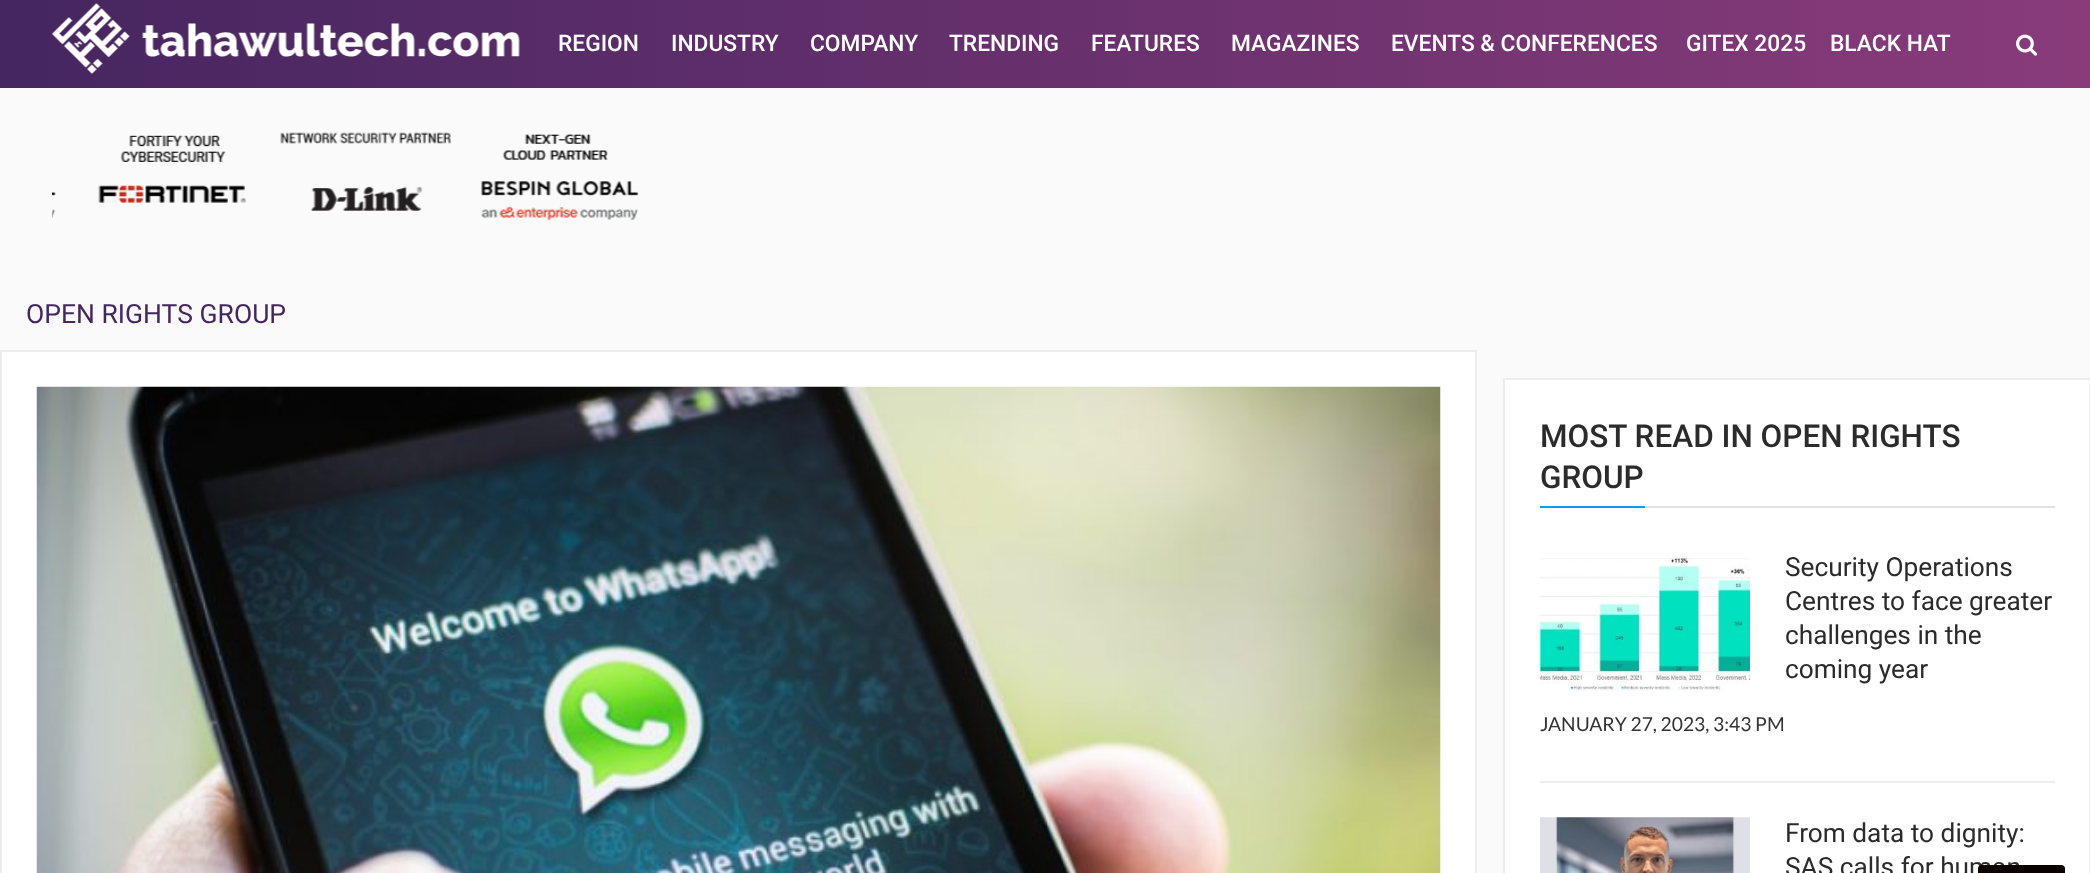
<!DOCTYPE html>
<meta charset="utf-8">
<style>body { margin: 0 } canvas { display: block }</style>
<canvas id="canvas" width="2090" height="873"></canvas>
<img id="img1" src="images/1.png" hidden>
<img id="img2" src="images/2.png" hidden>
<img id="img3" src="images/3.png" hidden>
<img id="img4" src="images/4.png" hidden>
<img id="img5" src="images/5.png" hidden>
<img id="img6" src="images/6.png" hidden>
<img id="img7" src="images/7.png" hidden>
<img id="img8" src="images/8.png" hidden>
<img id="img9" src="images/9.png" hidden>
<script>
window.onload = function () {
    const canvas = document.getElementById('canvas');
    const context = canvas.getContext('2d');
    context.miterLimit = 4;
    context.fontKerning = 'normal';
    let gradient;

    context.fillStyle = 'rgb(250, 250, 250)';
    context.fillRect(0, 0, 2090, 873);
    gradient = context.createLinearGradient(0, 44, 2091, 44);
    gradient.addColorStop(0, 'rgb(69, 38, 96)');
    gradient.addColorStop(1, 'rgb(137, 59, 122)');
    context.fillStyle = gradient;
    context.fillRect(0, 0, 2090, 88);
    context.drawImage(document.getElementById('img1'), 52, 3, 468, 71);
    context.drawImage(document.getElementById('img2'), 2016, 34, 22, 22);
    context.drawImage(document.getElementById('img3'), 52, 192, 4, 27);
    context.drawImage(document.getElementById('img4'), 98, 135, 149, 68);
    context.drawImage(document.getElementById('img5'), 280, 132, 171, 79);
    context.drawImage(document.getElementById('img6'), 481, 134, 158, 86);
    context.fillStyle = 'rgb(255, 255, 255)';
    context.beginPath();
    context.rect(1, 351, 1475, 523);
    context.fill();
    context.strokeStyle = 'rgb(236, 236, 236)';
    context.lineWidth = 2;
    context.stroke();
    context.drawImage(document.getElementById('img7'), 36, 386, 1405, 487);
    context.beginPath();
    context.rect(1504, 379, 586, 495);
    context.fill();
    context.stroke();
    context.fillStyle = 'rgb(226, 226, 226)';
    context.fillRect(1645, 506, 410, 2);
    context.fillStyle = 'rgb(0, 158, 237)';
    context.fillRect(1540, 506, 105, 2);
    context.fillStyle = 'rgb(238, 238, 238)';
    context.fillRect(1540, 781, 515, 2);
    context.drawImage(document.getElementById('img8'), 1540, 558, 210, 134);
    context.drawImage(document.getElementById('img9'), 1540, 817, 210, 56);
    context.font = '500 22.75px Roboto';
    context.fillStyle = 'rgb(255, 255, 255)';
    context.fillText('REGION', 558, 51);
    context.fillText('INDUSTRY', 671, 51);
    context.fillText('COMPANY', 810, 51);
    context.fillText('TRENDING', 949, 51);
    context.fillText('FEATURES', 1091, 51);
    context.fillText('MAGAZINES', 1231, 51);
    context.fillText('EVENTS & CONFERENCES', 1391, 51);
    context.fillText('GITEX 2025', 1686, 51);
    context.fillText('BLACK HAT', 1830, 51);
    context.font = '26.5px Roboto';
    context.fillStyle = 'rgb(69, 38, 96)';
    context.fillText('OPEN RIGHTS GROUP', 26, 323);
    context.font = '500 31.5px Roboto';
    context.fillStyle = 'rgb(43, 43, 43)';
    context.fillText('MOST READ IN OPEN RIGHTS', 1540, 447);
    context.fillText('GROUP', 1540, 488);
    context.font = '26.25px Roboto';
    context.fillText('Security Operations', 1785, 576);
    context.fillText('Centres to face greater', 1785, 610);
    context.fillText('challenges in the', 1785, 644);
    context.fillText('coming year', 1785, 678);
    context.font = '19.25px Lato';
    context.fillStyle = 'rgb(51, 51, 51)';
    context.fillText('JANUARY 27, 2023, 3:43 PM', 1540, 731);
    context.font = '26.25px Roboto';
    context.fillStyle = 'rgb(43, 43, 43)';
    context.fillText('From data to dignity:', 1785, 842);
    context.fillText('SAS calls for human', 1785, 876);
    context.fillStyle = 'rgb(10, 0, 0)';
    context.beginPath();
    context.roundRect(1978, 865, 87, 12, 4);
    context.fill();
};
</script>
